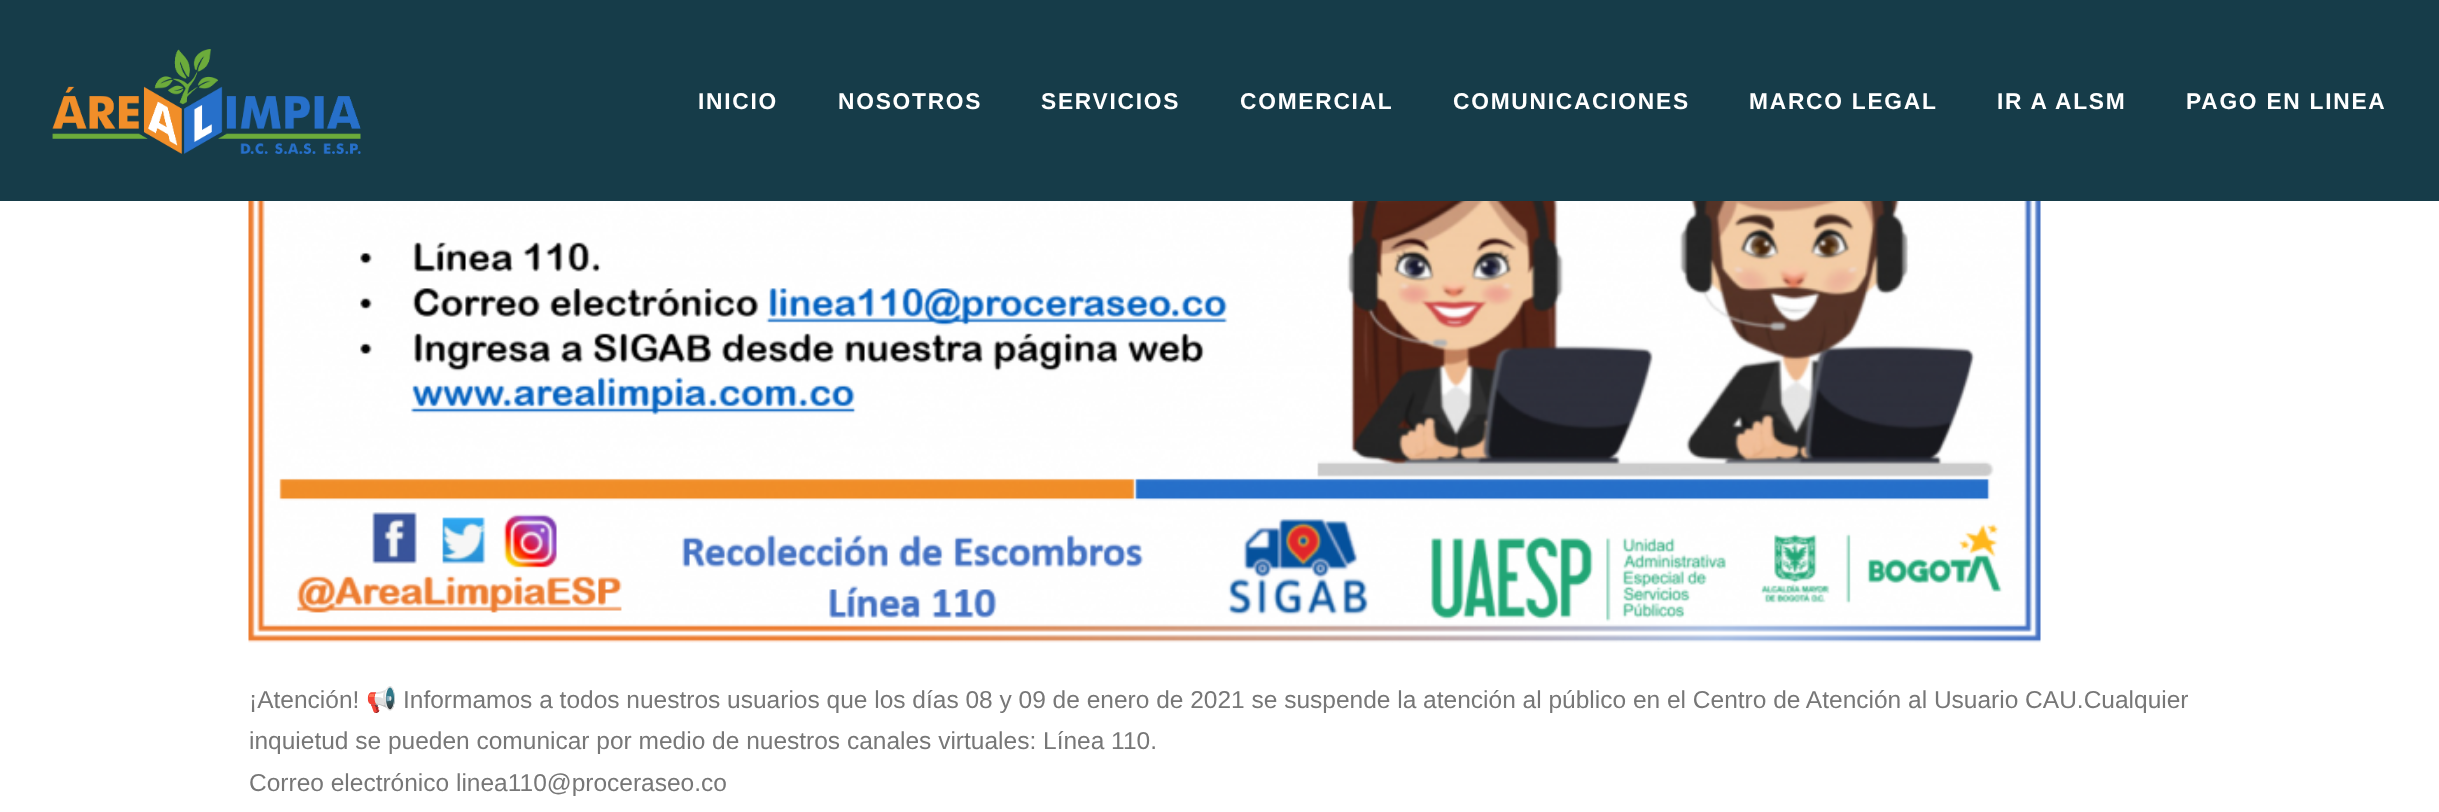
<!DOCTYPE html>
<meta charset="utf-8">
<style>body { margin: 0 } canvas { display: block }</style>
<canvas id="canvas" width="2439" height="812"></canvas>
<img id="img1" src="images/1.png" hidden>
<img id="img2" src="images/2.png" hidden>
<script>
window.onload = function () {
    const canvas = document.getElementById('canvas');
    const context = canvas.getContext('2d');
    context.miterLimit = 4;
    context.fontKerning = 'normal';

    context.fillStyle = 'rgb(255, 255, 255)';
    context.fillRect(0, 0, 2439, 812);
    context.fillStyle = 'rgb(22, 60, 73)';
    context.fillRect(0, 0, 2439, 201);
    context.drawImage(document.getElementById('img1'), 52, 49, 309, 105);
    context.drawImage(document.getElementById('img2'), 248, 201, 1793, 442);
    context.letterSpacing = '1.75px';
    context.font = 'bold 22.75px Liberation Sans';
    context.fillStyle = 'rgb(255, 255, 255)';
    context.fillText('INICIO', 698, 109);
    context.fillText('NOSOTROS', 838, 109);
    context.fillText('SERVICIOS', 1041, 109);
    context.fillText('COMERCIAL', 1240, 109);
    context.fillText('COMUNICACIONES', 1453, 109);
    context.fillText('MARCO LEGAL', 1749, 109);
    context.fillText('IR A ALSM', 1997, 109);
    context.fillText('PAGO EN LINEA', 2186, 109);
    context.letterSpacing = '0px';
    context.font = '24.5px Liberation Sans';
    context.fillStyle = 'rgb(119, 119, 119)';
    context.fillText('¡Atención!', 249, 708);
    context.font = '24.5px Noto Color Emoji';
    context.fillText('📢', 366, 708);
    context.font = '24.5px Liberation Sans';
    context.fillText('Informamos a todos nuestros usuarios que los días 08 y 09 de enero de 2021 se suspende la atención al público en el Centro de Atención al Usuario CAU.Cualquier', 403, 708);
    context.fillText('inquietud se pueden comunicar por medio de nuestros canales virtuales: Línea 110.', 249, 749);
    context.fillText('Correo electrónico linea110@proceraseo.co', 249, 791);
};
</script>
